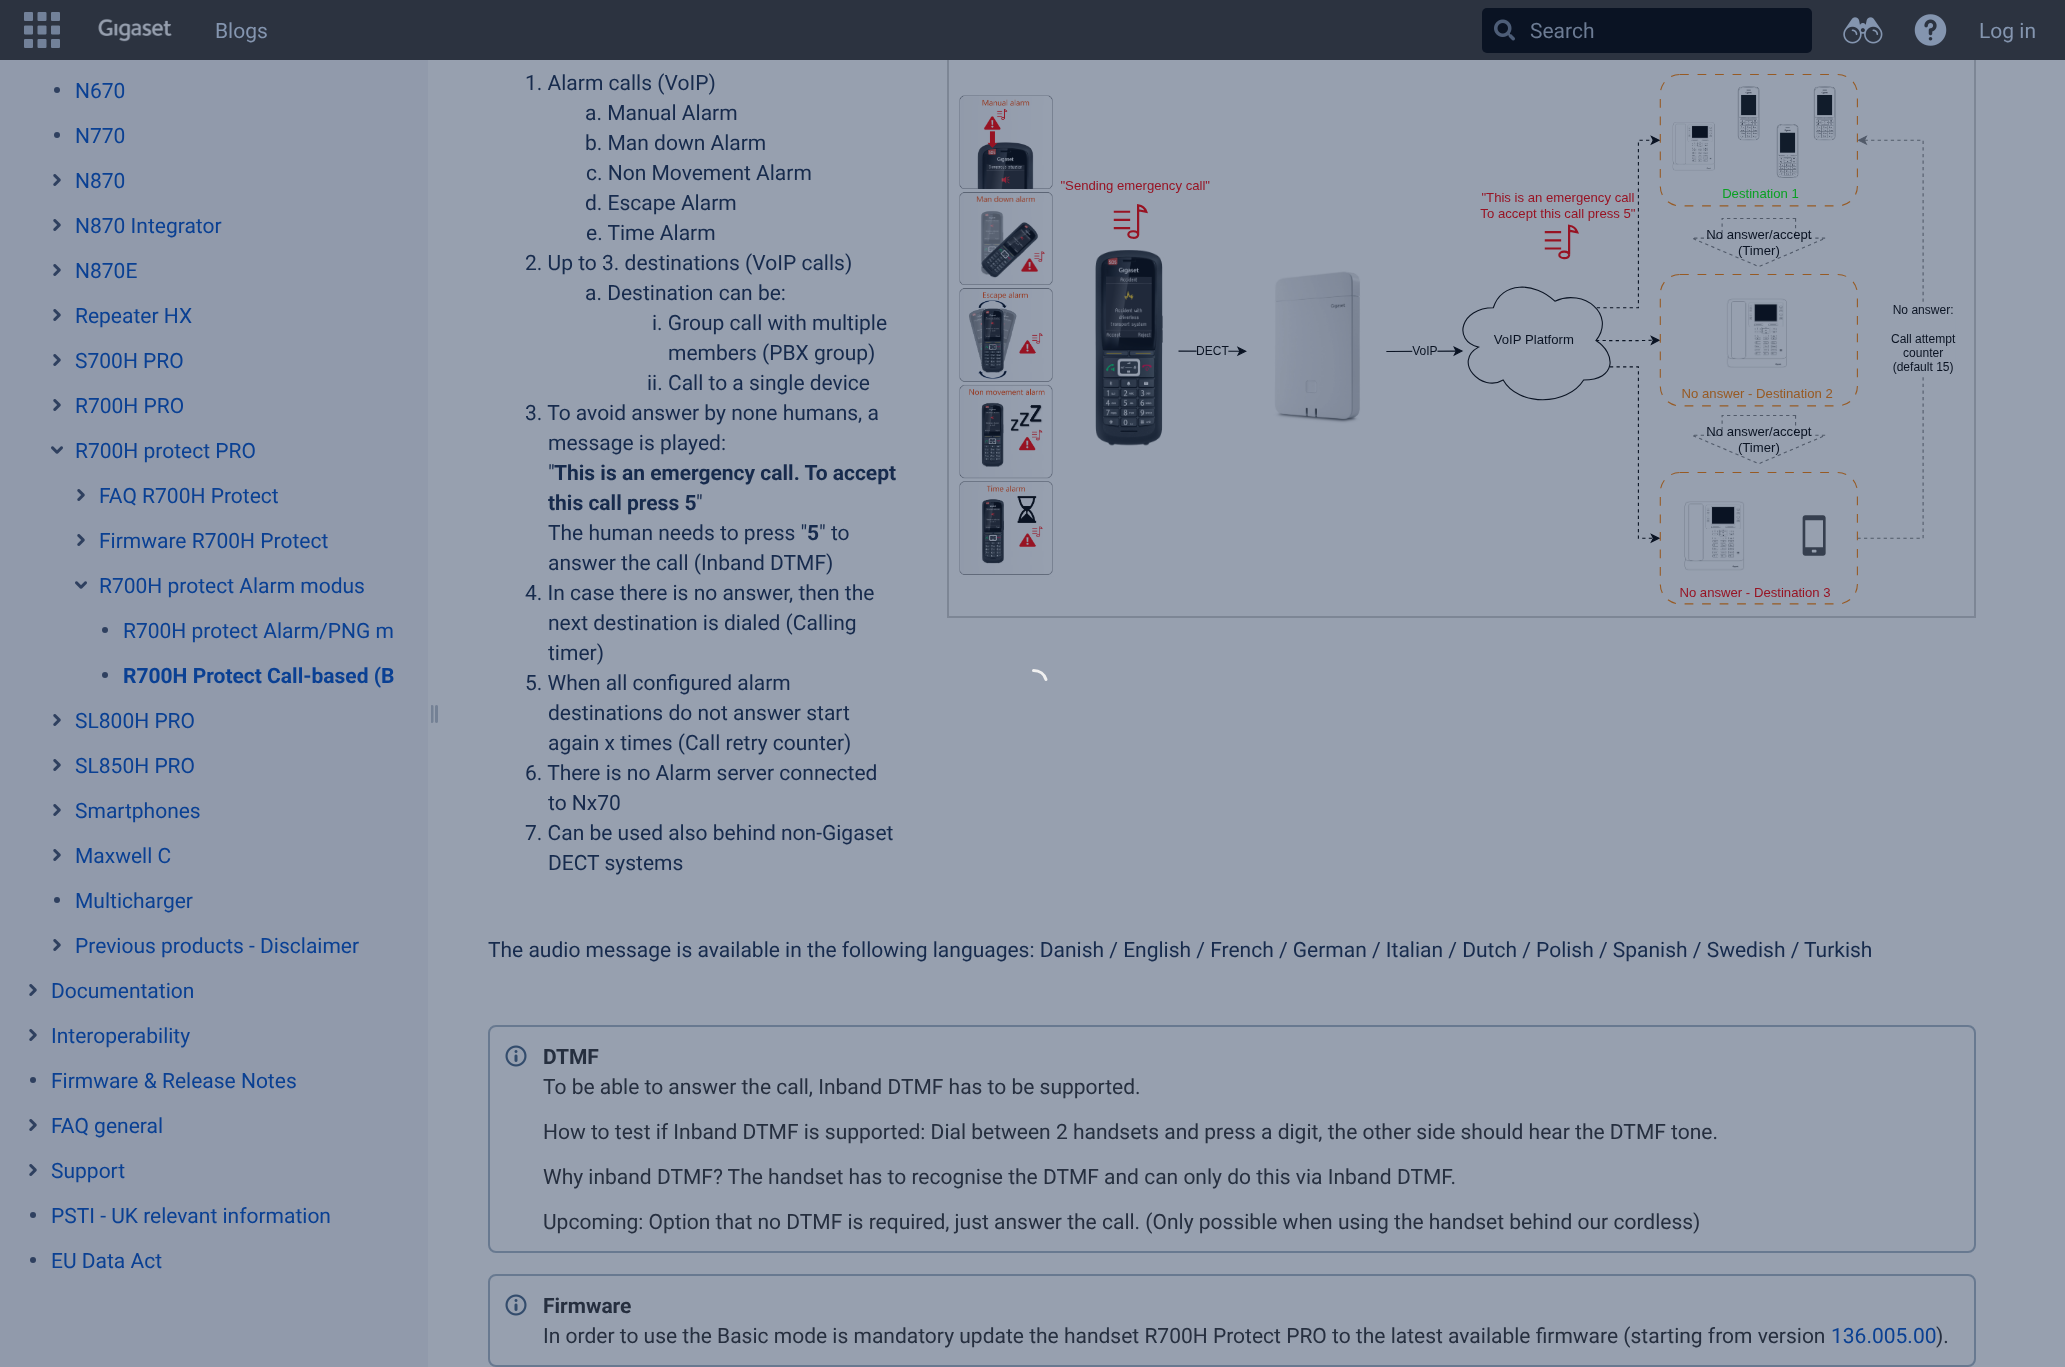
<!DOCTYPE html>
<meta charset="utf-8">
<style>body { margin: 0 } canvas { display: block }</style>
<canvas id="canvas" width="2065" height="1367"></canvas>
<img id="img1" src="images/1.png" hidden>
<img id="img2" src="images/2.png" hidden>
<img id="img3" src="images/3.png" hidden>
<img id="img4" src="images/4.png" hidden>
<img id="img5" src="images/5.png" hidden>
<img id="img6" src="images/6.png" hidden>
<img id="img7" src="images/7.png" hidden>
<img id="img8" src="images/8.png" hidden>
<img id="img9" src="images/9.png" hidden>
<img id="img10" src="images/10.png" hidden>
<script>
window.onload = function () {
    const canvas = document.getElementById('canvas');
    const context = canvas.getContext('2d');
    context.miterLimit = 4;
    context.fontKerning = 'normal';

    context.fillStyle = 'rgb(145, 154, 171)';
    context.fillRect(0, 0, 2065, 1367);
    context.fillStyle = 'rgb(151, 160, 175)';
    context.fillRect(428, 60, 1637, 1307);
    context.strokeStyle = 'rgb(125, 134, 149)';
    context.lineWidth = 2;
    context.strokeRect(948, 33, 1027, 584);
    context.fillStyle = 'rgb(44, 51, 64)';
    context.fillRect(0, 0, 2065, 60);
    context.drawImage(document.getElementById('img1'), 24, 12, 36, 36);
    context.drawImage(document.getElementById('img2'), 98, 18, 74, 24);
    context.fillStyle = 'rgb(10, 19, 35)';
    context.beginPath();
    context.roundRect(1482, 8, 330, 45, 5);
    context.fill();
    context.drawImage(document.getElementById('img3'), 1494, 19, 21, 22);
    context.drawImage(document.getElementById('img4'), 1843, 17, 40, 27);
    context.drawImage(document.getElementById('img5'), 1914, 14, 33, 32);
    context.fillStyle = 'rgb(47, 64, 95)';
    context.beginPath();
    context.arc(57, 90, 3, 0, 2 * Math.PI);
    context.fill();
    context.beginPath();
    context.arc(57, 135, 3, 0, 2 * Math.PI);
    context.fill();
    context.drawImage(document.getElementById('img6'), 53, 174, 8, 12);
    context.drawImage(document.getElementById('img6'), 53, 219, 8, 12);
    context.drawImage(document.getElementById('img6'), 53, 264, 8, 12);
    context.drawImage(document.getElementById('img6'), 53, 309, 8, 12);
    context.drawImage(document.getElementById('img6'), 53, 354, 8, 12);
    context.drawImage(document.getElementById('img6'), 53, 399, 8, 12);
    context.drawImage(document.getElementById('img7'), 51, 446, 12, 8);
    context.drawImage(document.getElementById('img6'), 77, 489, 8, 12);
    context.drawImage(document.getElementById('img6'), 77, 534, 8, 12);
    context.drawImage(document.getElementById('img7'), 75, 581, 12, 8);
    context.beginPath();
    context.arc(105, 630, 3, 0, 2 * Math.PI);
    context.fill();
    context.beginPath();
    context.arc(105, 675, 3, 0, 2 * Math.PI);
    context.fill();
    context.drawImage(document.getElementById('img6'), 53, 714, 8, 12);
    context.drawImage(document.getElementById('img6'), 53, 759, 8, 12);
    context.drawImage(document.getElementById('img6'), 53, 804, 8, 12);
    context.drawImage(document.getElementById('img6'), 53, 849, 8, 12);
    context.beginPath();
    context.arc(57, 900, 3, 0, 2 * Math.PI);
    context.fill();
    context.drawImage(document.getElementById('img6'), 53, 939, 8, 12);
    context.drawImage(document.getElementById('img6'), 29, 984, 8, 12);
    context.drawImage(document.getElementById('img6'), 29, 1029, 8, 12);
    context.beginPath();
    context.arc(33, 1080, 3, 0, 2 * Math.PI);
    context.fill();
    context.drawImage(document.getElementById('img6'), 29, 1119, 8, 12);
    context.drawImage(document.getElementById('img6'), 29, 1164, 8, 12);
    context.beginPath();
    context.arc(33, 1215, 3, 0, 2 * Math.PI);
    context.fill();
    context.beginPath();
    context.arc(33, 1260, 3, 0, 2 * Math.PI);
    context.fill();
    context.drawImage(document.getElementById('img8'), 431, 705, 7, 18);
    context.drawImage(document.getElementById('img9'), 959, 74, 997, 531);
    context.beginPath();
    context.roundRect(489, 1026, 1486, 226, 7);
    context.strokeStyle = 'rgb(104, 121, 144)';
    context.stroke();
    context.drawImage(document.getElementById('img10'), 505, 1045, 22, 22);
    context.beginPath();
    context.roundRect(489, 1275, 1486, 91, 7);
    context.stroke();
    context.drawImage(document.getElementById('img10'), 505, 1294, 22, 22);
    context.beginPath();
    context.moveTo(1033.5, 670.5);
    context.bezierCurveTo(1039.5, 670.5, 1044.5, 674, 1046, 679.5);
    context.strokeStyle = 'rgb(240, 240, 240)';
    context.lineWidth = 3;
    context.lineCap = 'round';
    context.stroke();
    context.font = '21px Roboto';
    context.fillStyle = 'rgb(132, 149, 175)';
    context.fillText('Blogs', 215, 38);
    context.fillStyle = 'rgb(108, 123, 147)';
    context.fillText('Search', 1530, 38);
    context.fillStyle = 'rgb(132, 149, 175)';
    context.fillText('Log in', 1979, 38);
    context.fillStyle = 'rgb(10, 64, 147)';
    context.fillText('N670', 75, 98);
    context.fillText('N770', 75, 143);
    context.fillText('N870', 75, 188);
    context.fillText('N870 Integrator', 75, 233);
    context.fillText('N870E', 75, 278);
    context.fillText('Repeater HX', 75, 323);
    context.fillText('S700H PRO', 75, 368);
    context.fillText('R700H PRO', 75, 413);
    context.fillText('R700H protect PRO', 75, 458);
    context.fillText('FAQ R700H Protect', 99, 503);
    context.fillText('Firmware R700H Protect', 99, 548);
    context.fillText('R700H protect Alarm modus', 99, 593);
    context.fillText('R700H protect Alarm/PNG m', 123, 638);
    context.font = 'bold 21px Roboto';
    context.fillText('R700H Protect Call-based (B', 123, 683);
    context.font = '21px Roboto';
    context.fillText('SL800H PRO', 75, 728);
    context.fillText('SL850H PRO', 75, 773);
    context.fillText('Smartphones', 75, 818);
    context.fillText('Maxwell C', 75, 863);
    context.fillText('Multicharger', 75, 908);
    context.fillText('Previous products - Disclaimer', 75, 953);
    context.fillText('Documentation', 51, 998);
    context.fillText('Interoperability', 51, 1043);
    context.fillText('Firmware & Release Notes', 51, 1088);
    context.fillText('FAQ general', 51, 1133);
    context.fillText('Support', 51, 1178);
    context.fillText('PSTI - UK relevant information', 51, 1223);
    context.fillText('EU Data Act', 51, 1268);
    context.fillStyle = 'rgb(23, 43, 77)';
    context.fillText('1. Alarm calls (VoIP)', 525, 90);
    context.fillText('a. Manual Alarm', 585, 120);
    context.fillText('b. Man down Alarm', 585, 150);
    context.fillText('c. Non Movement Alarm', 586, 180);
    context.fillText('d. Escape Alarm', 585, 210);
    context.fillText('e. Time Alarm', 586, 240);
    context.fillText('2. Up to 3. destinations (VoIP calls)', 525, 270);
    context.fillText('a. Destination can be:', 585, 300);
    context.fillText('i. Group call with multiple', 652, 330);
    context.fillText('members (PBX group)', 668, 360);
    context.fillText('ii. Call to a single device', 647, 390);
    context.fillText('3. To avoid answer by none humans, a', 525, 420);
    context.fillText('message is played:', 548, 450);
    context.fillText('"', 548, 480);
    context.font = 'bold 21px Roboto';
    context.fillText('This is an emergency call. To accept', 554, 480);
    context.fillText('this call press 5', 548, 510);
    context.font = '21px Roboto';
    context.fillText('"', 696, 510);
    context.fillText('The human needs to press "', 548, 540);
    context.font = 'bold 21px Roboto';
    context.fillText('5', 807, 540);
    context.font = '21px Roboto';
    context.fillText('" to', 819, 540);
    context.fillText('answer the call (Inband DTMF)', 548, 570);
    context.fillText('4. In case there is no answer, then the', 525, 600);
    context.fillText('next destination is dialed (Calling', 548, 630);
    context.fillText('timer)', 548, 660);
    context.fillText('5. When all configured alarm', 525, 690);
    context.fillText('destinations do not answer start', 548, 720);
    context.fillText('again x times (Call retry counter)', 548, 750);
    context.fillText('6. There is no Alarm server connected', 525, 780);
    context.fillText('to Nx70', 548, 810);
    context.fillText('7. Can be used also behind non-Gigaset', 525, 840);
    context.fillText('DECT systems', 548, 870);
    context.fillText('The audio message is available in the following languages: Danish / English / French / German / Italian / Dutch / Polish / Spanish / Swedish /', 488, 957);
    context.fillText('Turkish', 1804, 957);
    context.font = 'bold 21px Roboto';
    context.fillStyle = 'rgb(38, 47, 63)';
    context.fillText('DTMF', 543, 1064);
    context.font = '21px Roboto';
    context.fillText('To be able to answer the call, Inband DTMF has to be supported.', 543, 1094);
    context.fillText('How to test if Inband DTMF is supported: Dial between 2 handsets and press a digit, the other side should hear the DTMF tone.', 543, 1139);
    context.fillText('Why inband DTMF? The handset has to recognise the DTMF and can only do this via Inband DTMF.', 543, 1184);
    context.fillText('Upcoming: Option that no DTMF is required, just answer the call. (Only possible when using the handset behind our cordless)', 543, 1229);
    context.font = 'bold 21px Roboto';
    context.fillText('Firmware', 543, 1313);
    context.font = '21px Roboto';
    context.fillText('In order to use the Basic mode is mandatory update the handset R700H Protect PRO to the latest available firmware (starting from version', 543, 1343);
    context.fillStyle = 'rgb(10, 64, 147)';
    context.fillText('136.005.00', 1831, 1343);
    context.fillStyle = 'rgb(38, 47, 63)';
    context.fillText(').', 1936, 1343);
};
</script>
